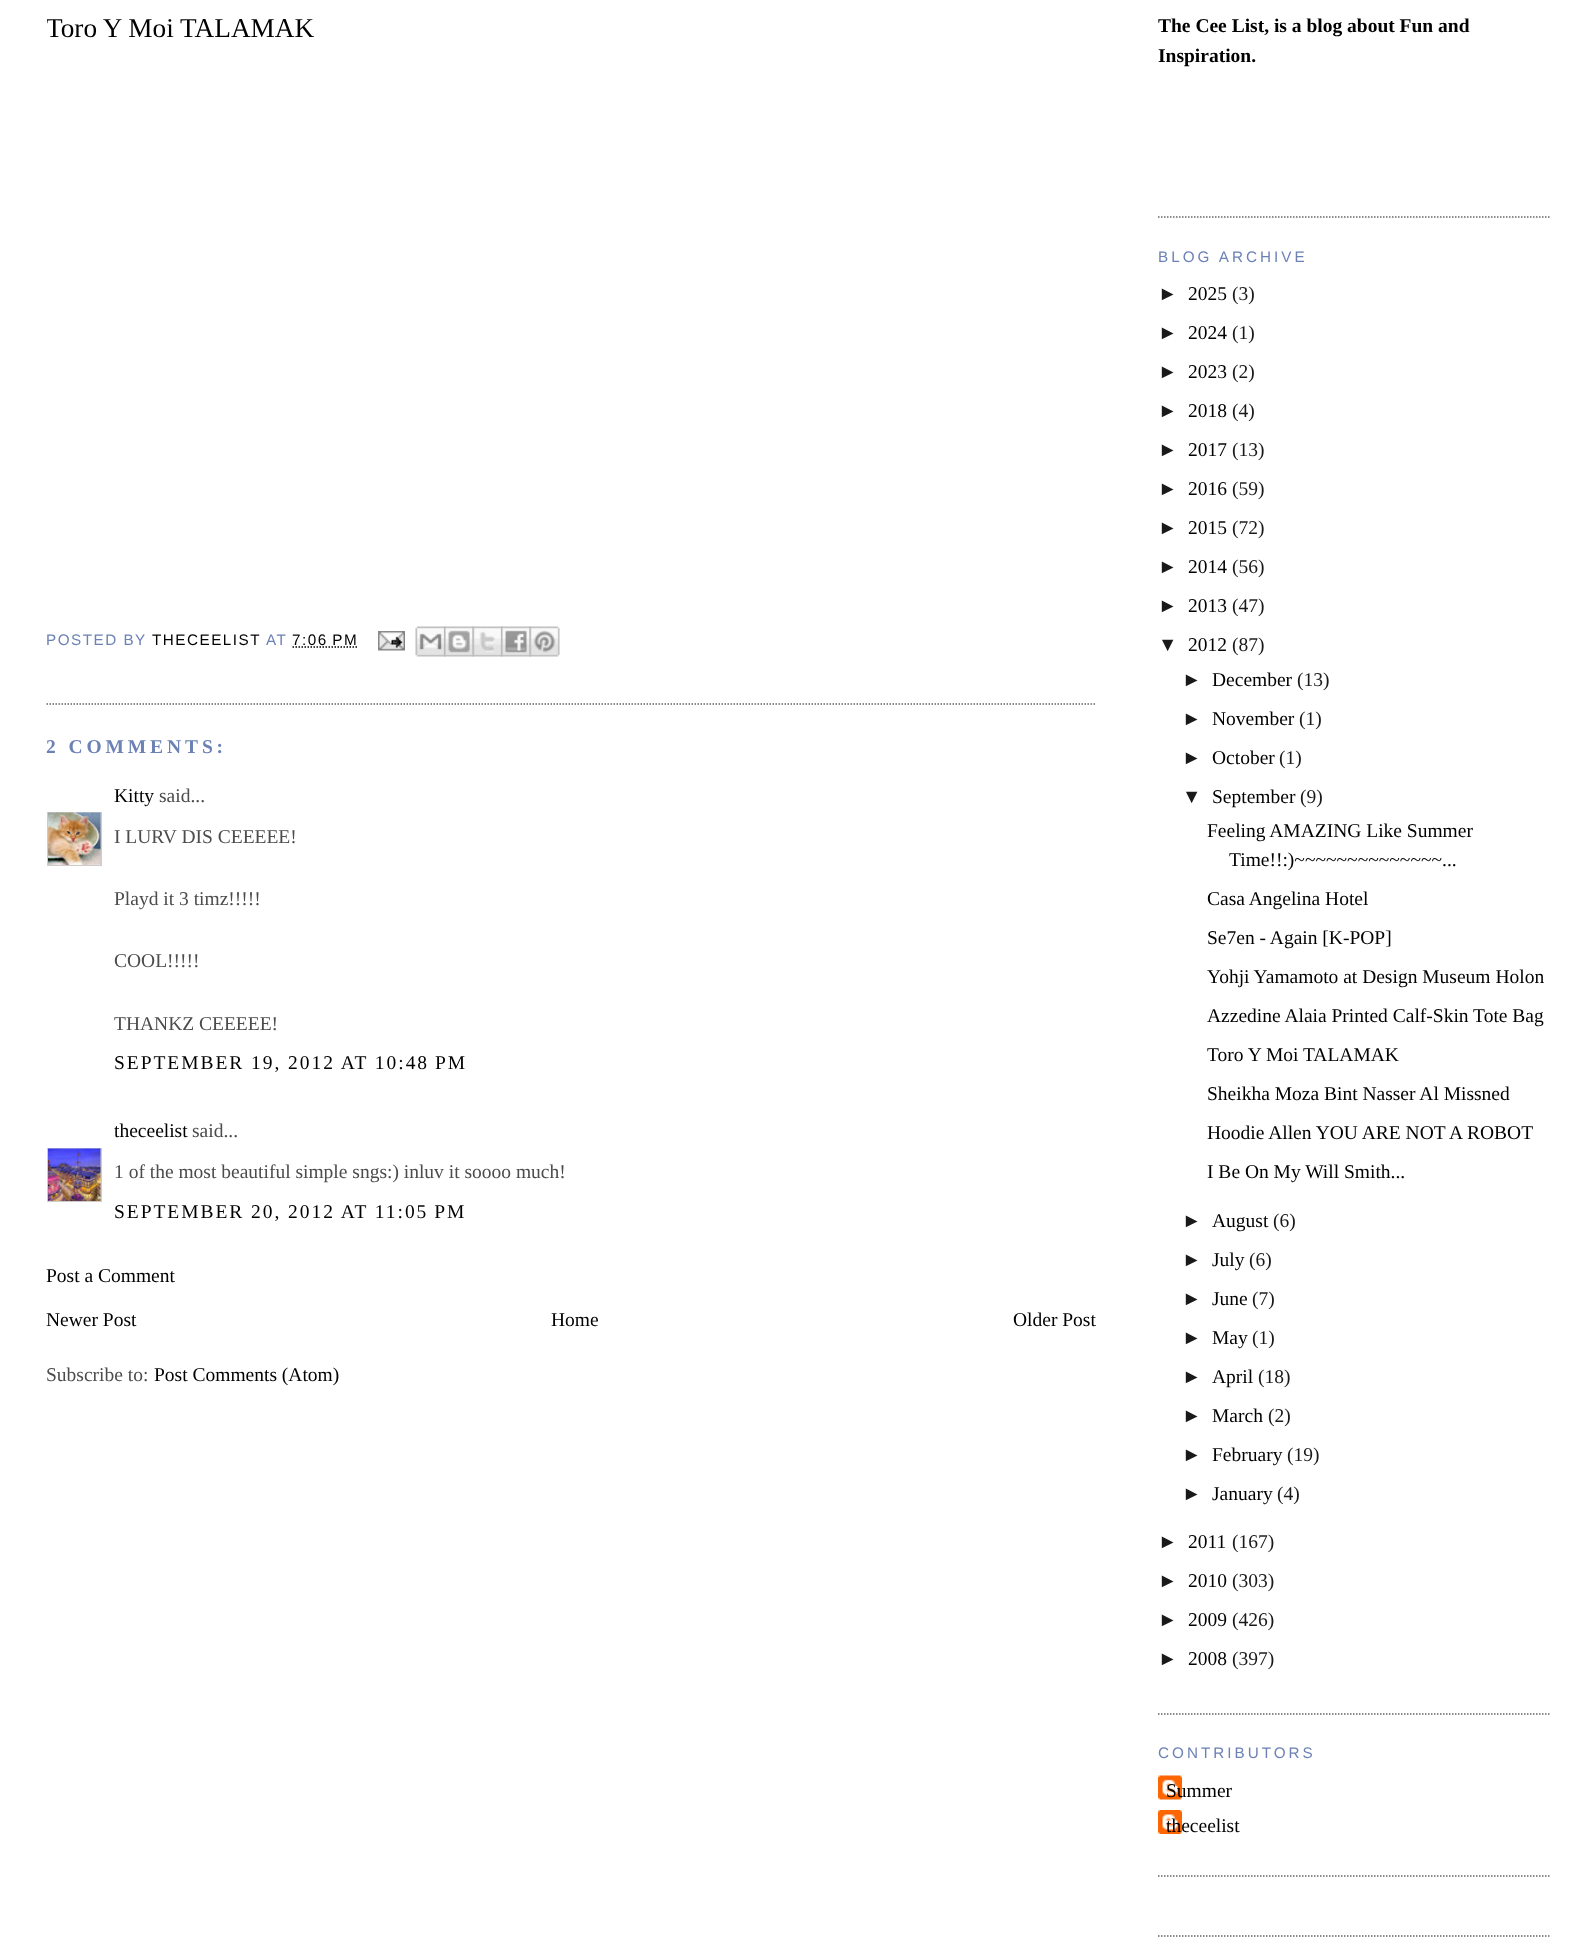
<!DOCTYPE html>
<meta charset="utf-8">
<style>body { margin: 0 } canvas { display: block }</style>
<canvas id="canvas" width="1595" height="1950"></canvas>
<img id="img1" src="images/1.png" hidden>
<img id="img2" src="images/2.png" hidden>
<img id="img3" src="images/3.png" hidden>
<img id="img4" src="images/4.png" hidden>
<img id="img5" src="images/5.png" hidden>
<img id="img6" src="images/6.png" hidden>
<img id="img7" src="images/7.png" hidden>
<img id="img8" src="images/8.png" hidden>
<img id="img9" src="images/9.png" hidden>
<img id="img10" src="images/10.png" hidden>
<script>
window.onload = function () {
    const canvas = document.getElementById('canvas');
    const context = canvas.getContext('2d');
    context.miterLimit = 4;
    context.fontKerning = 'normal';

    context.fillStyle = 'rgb(255, 255, 255)';
    context.fillRect(0, 0, 1595, 1950);
    context.beginPath();
    context.moveTo(46.5, 704);
    context.lineTo(1095, 704);
    context.strokeStyle = 'rgb(102, 102, 102)';
    context.lineWidth = 1.5;
    context.setLineDash([1.5, 1.5]);
    context.stroke();
    context.beginPath();
    context.moveTo(292.5, 647);
    context.lineTo(358.5, 647);
    context.strokeStyle = 'rgb(0, 0, 0)';
    context.stroke();
    context.drawImage(document.getElementById('img1'), 378, 631, 27, 20);
    context.drawImage(document.getElementById('img2'), 415, 626, 31, 31);
    context.drawImage(document.getElementById('img3'), 444, 626, 30, 31);
    context.drawImage(document.getElementById('img4'), 472, 626, 31, 31);
    context.drawImage(document.getElementById('img5'), 501, 626, 30, 31);
    context.drawImage(document.getElementById('img6'), 529, 626, 31, 31);
    context.save();
    context.beginPath();
    context.rect(47, 812, 55, 54);
    context.clip();
    context.strokeStyle = 'rgb(204, 204, 204)';
    context.lineWidth = 2;
    context.setLineDash([]);
    context.strokeRect(48, 813, 53, 53);
    context.restore();
    context.drawImage(document.getElementById('img7'), 48, 812, 53, 53);
    context.save();
    context.beginPath();
    context.rect(47, 1148, 55, 54);
    context.clip();
    context.strokeStyle = 'rgb(204, 204, 204)';
    context.lineWidth = 2;
    context.setLineDash([]);
    context.strokeRect(48, 1149, 53, 53);
    context.restore();
    context.drawImage(document.getElementById('img8'), 48, 1148, 53, 53);
    context.beginPath();
    context.moveTo(1158, 217);
    context.lineTo(1549.5, 217);
    context.strokeStyle = 'rgb(102, 102, 102)';
    context.stroke();
    context.beginPath();
    context.moveTo(1158, 1714);
    context.lineTo(1549.5, 1714);
    context.stroke();
    context.beginPath();
    context.moveTo(1158, 1876);
    context.lineTo(1549.5, 1876);
    context.stroke();
    context.drawImage(document.getElementById('img9'), 1158, 1775, 24, 25);
    context.drawImage(document.getElementById('img10'), 1158, 1810, 24, 24);
    context.beginPath();
    context.moveTo(1158, 1936);
    context.lineTo(1549.5, 1936);
    context.stroke();
    context.save();
    context.beginPath();
    context.rect(47, 0, 1048, 1458);
    context.clip();
    context.font = '27.25px Liberation Serif';
    context.fillStyle = 'rgb(0, 0, 0)';
    context.fillText('Toro Y Moi TALAMAK', 46, 37);
    context.restore();
    context.letterSpacing = '1.5px';
    context.font = '15.25px Liberation Sans';
    context.fillStyle = 'rgb(108, 130, 181)';
    context.fillText('POSTED BY', 46, 645);
    context.fillStyle = 'rgb(0, 0, 0)';
    context.fillText('THECEELIST', 152, 645);
    context.fillStyle = 'rgb(108, 130, 181)';
    context.fillText('AT', 266, 645);
    context.fillStyle = 'rgb(0, 0, 0)';
    context.fillText('7:06 PM', 292, 645);
    context.letterSpacing = '3.9px';
    context.font = 'bold 19.5px Liberation Serif';
    context.fillStyle = 'rgb(108, 130, 181)';
    context.fillText('2 COMMENTS:', 46, 753);
    context.letterSpacing = '0px';
    context.font = '19.5px Liberation Serif';
    context.fillStyle = 'rgb(0, 0, 0)';
    context.fillText('Kitty', 114, 802);
    context.fillStyle = 'rgb(76, 76, 76)';
    context.fillText('said...', 159, 802);
    context.fillText('I LURV DIS CEEEEE!', 114, 843);
    context.fillText('Playd it 3 timz!!!!!', 114, 905);
    context.fillText('COOL!!!!!', 114, 967);
    context.fillText('THANKZ CEEEEE!', 114, 1030);
    context.letterSpacing = '1.95px';
    context.fillStyle = 'rgb(0, 0, 0)';
    context.fillText('SEPTEMBER 19, 2012 AT 10:48 PM', 114, 1069);
    context.letterSpacing = '0px';
    context.fillText('theceelist', 114, 1137);
    context.fillStyle = 'rgb(76, 76, 76)';
    context.fillText('said...', 192, 1137);
    context.fillText('1 of the most beautiful simple sngs:) inluv it soooo much!', 114, 1178);
    context.letterSpacing = '1.95px';
    context.fillStyle = 'rgb(0, 0, 0)';
    context.fillText('SEPTEMBER 20, 2012 AT 11:05 PM', 114, 1218);
    context.letterSpacing = '0px';
    context.fillText('Post a Comment', 46, 1282);
    context.fillText('Newer Post', 46, 1326);
    context.fillText('Home', 551, 1326);
    context.fillText('Older Post', 1013, 1326);
    context.fillStyle = 'rgb(76, 76, 76)';
    context.fillText('Subscribe to:', 46, 1381);
    context.fillStyle = 'rgb(0, 0, 0)';
    context.fillText('Post Comments (Atom)', 154, 1381);
    context.font = 'bold 19.5px Liberation Serif';
    context.fillText('The Cee List, is a blog about Fun and', 1158, 32);
    context.fillText('Inspiration.', 1158, 62);
    context.letterSpacing = '3px';
    context.font = '15.25px Liberation Sans';
    context.fillStyle = 'rgb(108, 130, 181)';
    context.fillText('BLOG ARCHIVE', 1158, 262);
    context.letterSpacing = '0px';
    context.font = '19.5px Liberation Sans';
    context.fillStyle = 'rgb(25, 25, 25)';
    context.fillText('►', 1158, 300);
    context.font = '19.5px Liberation Serif';
    context.fillStyle = 'rgb(0, 0, 0)';
    context.fillText('2025', 1188, 300);
    context.fillStyle = 'rgb(25, 25, 25)';
    context.fillText('(3)', 1232, 300);
    context.font = '19.5px Liberation Sans';
    context.fillText('►', 1158, 339);
    context.font = '19.5px Liberation Serif';
    context.fillStyle = 'rgb(0, 0, 0)';
    context.fillText('2024', 1188, 339);
    context.fillStyle = 'rgb(25, 25, 25)';
    context.fillText('(1)', 1232, 339);
    context.font = '19.5px Liberation Sans';
    context.fillText('►', 1158, 378);
    context.font = '19.5px Liberation Serif';
    context.fillStyle = 'rgb(0, 0, 0)';
    context.fillText('2023', 1188, 378);
    context.fillStyle = 'rgb(25, 25, 25)';
    context.fillText('(2)', 1232, 378);
    context.font = '19.5px Liberation Sans';
    context.fillText('►', 1158, 417);
    context.font = '19.5px Liberation Serif';
    context.fillStyle = 'rgb(0, 0, 0)';
    context.fillText('2018', 1188, 417);
    context.fillStyle = 'rgb(25, 25, 25)';
    context.fillText('(4)', 1232, 417);
    context.font = '19.5px Liberation Sans';
    context.fillText('►', 1158, 456);
    context.font = '19.5px Liberation Serif';
    context.fillStyle = 'rgb(0, 0, 0)';
    context.fillText('2017', 1188, 456);
    context.fillStyle = 'rgb(25, 25, 25)';
    context.fillText('(13)', 1232, 456);
    context.font = '19.5px Liberation Sans';
    context.fillText('►', 1158, 495);
    context.font = '19.5px Liberation Serif';
    context.fillStyle = 'rgb(0, 0, 0)';
    context.fillText('2016', 1188, 495);
    context.fillStyle = 'rgb(25, 25, 25)';
    context.fillText('(59)', 1232, 495);
    context.font = '19.5px Liberation Sans';
    context.fillText('►', 1158, 534);
    context.font = '19.5px Liberation Serif';
    context.fillStyle = 'rgb(0, 0, 0)';
    context.fillText('2015', 1188, 534);
    context.fillStyle = 'rgb(25, 25, 25)';
    context.fillText('(72)', 1232, 534);
    context.font = '19.5px Liberation Sans';
    context.fillText('►', 1158, 573);
    context.font = '19.5px Liberation Serif';
    context.fillStyle = 'rgb(0, 0, 0)';
    context.fillText('2014', 1188, 573);
    context.fillStyle = 'rgb(25, 25, 25)';
    context.fillText('(56)', 1232, 573);
    context.font = '19.5px Liberation Sans';
    context.fillText('►', 1158, 612);
    context.font = '19.5px Liberation Serif';
    context.fillStyle = 'rgb(0, 0, 0)';
    context.fillText('2013', 1188, 612);
    context.fillStyle = 'rgb(25, 25, 25)';
    context.fillText('(47)', 1232, 612);
    context.font = '19.5px Liberation Sans';
    context.fillText('▼', 1158, 651);
    context.font = '19.5px Liberation Serif';
    context.fillStyle = 'rgb(0, 0, 0)';
    context.fillText('2012', 1188, 651);
    context.fillStyle = 'rgb(25, 25, 25)';
    context.fillText('(87)', 1232, 651);
    context.font = '19.5px Liberation Sans';
    context.fillText('►', 1182, 686);
    context.font = '19.5px Liberation Serif';
    context.fillStyle = 'rgb(0, 0, 0)';
    context.fillText('December', 1212, 686);
    context.fillStyle = 'rgb(25, 25, 25)';
    context.fillText('(13)', 1297, 686);
    context.font = '19.5px Liberation Sans';
    context.fillText('►', 1182, 725);
    context.font = '19.5px Liberation Serif';
    context.fillStyle = 'rgb(0, 0, 0)';
    context.fillText('November', 1212, 725);
    context.fillStyle = 'rgb(25, 25, 25)';
    context.fillText('(1)', 1299, 725);
    context.font = '19.5px Liberation Sans';
    context.fillText('►', 1182, 764);
    context.font = '19.5px Liberation Serif';
    context.fillStyle = 'rgb(0, 0, 0)';
    context.fillText('October', 1212, 764);
    context.fillStyle = 'rgb(25, 25, 25)';
    context.fillText('(1)', 1279, 764);
    context.font = '19.5px Liberation Sans';
    context.fillText('▼', 1182, 803);
    context.font = '19.5px Liberation Serif';
    context.fillStyle = 'rgb(0, 0, 0)';
    context.fillText('September', 1212, 803);
    context.fillStyle = 'rgb(25, 25, 25)';
    context.fillText('(9)', 1300, 803);
    context.fillStyle = 'rgb(0, 0, 0)';
    context.fillText('Feeling AMAZING Like Summer', 1207, 837);
    context.fillText('Time!!:)~~~~~~~~~~~~~~...', 1229, 866);
    context.fillText('Casa Angelina Hotel', 1207, 905);
    context.fillText('Se7en - Again [K-POP]', 1207, 944);
    context.fillText('Yohji Yamamoto at Design Museum Holon', 1207, 983);
    context.fillText('Azzedine Alaia Printed Calf-Skin Tote Bag', 1207, 1022);
    context.fillText('Toro Y Moi TALAMAK', 1207, 1061);
    context.fillText('Sheikha Moza Bint Nasser Al Missned', 1207, 1100);
    context.fillText('Hoodie Allen YOU ARE NOT A ROBOT', 1207, 1139);
    context.fillText('I Be On My Will Smith...', 1207, 1178);
    context.font = '19.5px Liberation Sans';
    context.fillStyle = 'rgb(25, 25, 25)';
    context.fillText('►', 1182, 1227);
    context.font = '19.5px Liberation Serif';
    context.fillStyle = 'rgb(0, 0, 0)';
    context.fillText('August', 1212, 1227);
    context.fillStyle = 'rgb(25, 25, 25)';
    context.fillText('(6)', 1273, 1227);
    context.font = '19.5px Liberation Sans';
    context.fillText('►', 1182, 1266);
    context.font = '19.5px Liberation Serif';
    context.fillStyle = 'rgb(0, 0, 0)';
    context.fillText('July', 1212, 1266);
    context.fillStyle = 'rgb(25, 25, 25)';
    context.fillText('(6)', 1249, 1266);
    context.font = '19.5px Liberation Sans';
    context.fillText('►', 1182, 1305);
    context.font = '19.5px Liberation Serif';
    context.fillStyle = 'rgb(0, 0, 0)';
    context.fillText('June', 1212, 1305);
    context.fillStyle = 'rgb(25, 25, 25)';
    context.fillText('(7)', 1252, 1305);
    context.font = '19.5px Liberation Sans';
    context.fillText('►', 1182, 1344);
    context.font = '19.5px Liberation Serif';
    context.fillStyle = 'rgb(0, 0, 0)';
    context.fillText('May', 1212, 1344);
    context.fillStyle = 'rgb(25, 25, 25)';
    context.fillText('(1)', 1252, 1344);
    context.font = '19.5px Liberation Sans';
    context.fillText('►', 1182, 1383);
    context.font = '19.5px Liberation Serif';
    context.fillStyle = 'rgb(0, 0, 0)';
    context.fillText('April', 1212, 1383);
    context.fillStyle = 'rgb(25, 25, 25)';
    context.fillText('(18)', 1258, 1383);
    context.font = '19.5px Liberation Sans';
    context.fillText('►', 1182, 1422);
    context.font = '19.5px Liberation Serif';
    context.fillStyle = 'rgb(0, 0, 0)';
    context.fillText('March', 1212, 1422);
    context.fillStyle = 'rgb(25, 25, 25)';
    context.fillText('(2)', 1268, 1422);
    context.font = '19.5px Liberation Sans';
    context.fillText('►', 1182, 1461);
    context.font = '19.5px Liberation Serif';
    context.fillStyle = 'rgb(0, 0, 0)';
    context.fillText('February', 1212, 1461);
    context.fillStyle = 'rgb(25, 25, 25)';
    context.fillText('(19)', 1287, 1461);
    context.font = '19.5px Liberation Sans';
    context.fillText('►', 1182, 1500);
    context.font = '19.5px Liberation Serif';
    context.fillStyle = 'rgb(0, 0, 0)';
    context.fillText('January', 1212, 1500);
    context.fillStyle = 'rgb(25, 25, 25)';
    context.fillText('(4)', 1277, 1500);
    context.font = '19.5px Liberation Sans';
    context.fillText('►', 1158, 1548);
    context.font = '19.5px Liberation Serif';
    context.fillStyle = 'rgb(0, 0, 0)';
    context.fillText('2011', 1188, 1548);
    context.fillStyle = 'rgb(25, 25, 25)';
    context.fillText('(167)', 1232, 1548);
    context.font = '19.5px Liberation Sans';
    context.fillText('►', 1158, 1587);
    context.font = '19.5px Liberation Serif';
    context.fillStyle = 'rgb(0, 0, 0)';
    context.fillText('2010', 1188, 1587);
    context.fillStyle = 'rgb(25, 25, 25)';
    context.fillText('(303)', 1232, 1587);
    context.font = '19.5px Liberation Sans';
    context.fillText('►', 1158, 1626);
    context.font = '19.5px Liberation Serif';
    context.fillStyle = 'rgb(0, 0, 0)';
    context.fillText('2009', 1188, 1626);
    context.fillStyle = 'rgb(25, 25, 25)';
    context.fillText('(426)', 1232, 1626);
    context.font = '19.5px Liberation Sans';
    context.fillText('►', 1158, 1665);
    context.font = '19.5px Liberation Serif';
    context.fillStyle = 'rgb(0, 0, 0)';
    context.fillText('2008', 1188, 1665);
    context.fillStyle = 'rgb(25, 25, 25)';
    context.fillText('(397)', 1232, 1665);
    context.letterSpacing = '3px';
    context.font = '15.25px Liberation Sans';
    context.fillStyle = 'rgb(108, 130, 181)';
    context.fillText('CONTRIBUTORS', 1158, 1758);
    context.letterSpacing = '0px';
    context.font = '19.5px Liberation Serif';
    context.fillStyle = 'rgb(0, 0, 0)';
    context.fillText('Summer', 1166, 1797);
    context.fillText('theceelist', 1166, 1832);
};
</script>
